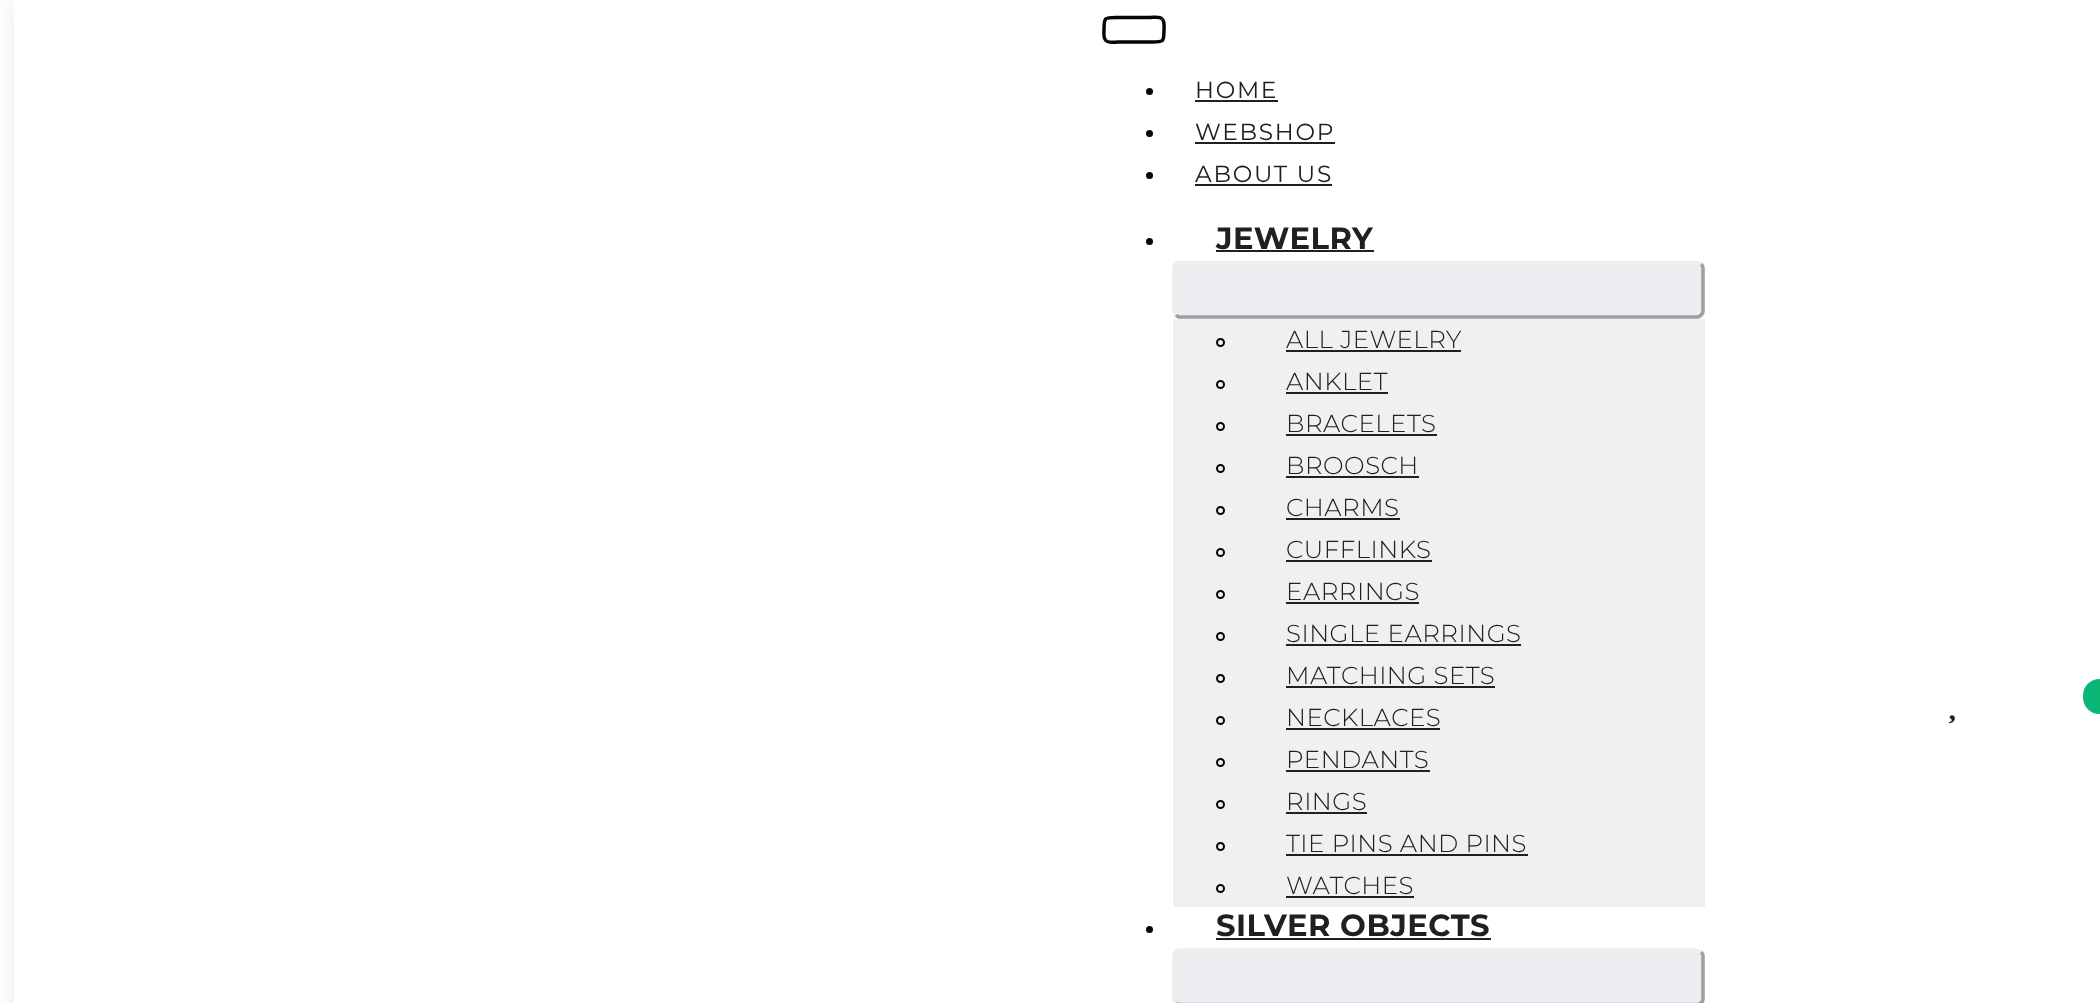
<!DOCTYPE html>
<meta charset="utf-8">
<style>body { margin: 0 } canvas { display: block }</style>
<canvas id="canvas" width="2100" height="1003"></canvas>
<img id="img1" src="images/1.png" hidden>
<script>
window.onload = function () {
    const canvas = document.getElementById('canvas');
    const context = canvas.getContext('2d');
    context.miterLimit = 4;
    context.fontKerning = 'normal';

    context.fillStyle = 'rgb(255, 255, 255)';
    context.fillRect(0, 0, 2100, 1003);
    context.fillStyle = 'rgba(0, 0, 0, 0.1)';
    context.filter = 'blur(13px)';
    context.beginPath();
    context.rect(16, 2, 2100, 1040);
    context.fill();
    context.filter = 'none';
    context.fillStyle = 'rgb(255, 255, 255)';
    context.fillRect(14, 0, 2086, 1003);
    context.beginPath();
    context.moveTo(1162, 19);
    context.bezierCurveTo(1165, 21.5, 1164, 26.5, 1164, 30);
    context.bezierCurveTo(1164, 42.5, 1163.5, 42, 1150.5, 42);
    context.lineTo(1117.5, 42);
    context.bezierCurveTo(1115, 42, 1108.5, 43.5, 1106, 40.5);
    context.strokeStyle = 'rgb(7, 3, 3)';
    context.lineWidth = 3.5;
    context.stroke();
    context.beginPath();
    context.moveTo(1106, 40.5);
    context.bezierCurveTo(1103, 38, 1104, 33, 1104, 30);
    context.bezierCurveTo(1104, 17, 1104.5, 17.5, 1117.5, 17.5);
    context.lineTo(1150.5, 17.5);
    context.bezierCurveTo(1153, 17.5, 1159.5, 16, 1162, 19);
    context.strokeStyle = 'rgb(10, 4, 4)';
    context.stroke();
    context.fillStyle = 'rgb(10, 4, 4)';
    context.beginPath();
    context.arc(1149.5, 91.5, 3.5, 0, 2 * Math.PI);
    context.fill();
    context.fillStyle = 'rgb(32, 32, 32)';
    context.fillRect(1195, 100, 83, 2);
    context.fillStyle = 'rgb(10, 4, 4)';
    context.beginPath();
    context.arc(1149.5, 133.5, 3.5, 0, 2 * Math.PI);
    context.fill();
    context.fillStyle = 'rgb(32, 32, 32)';
    context.fillRect(1195, 142, 140, 2);
    context.fillStyle = 'rgb(10, 4, 4)';
    context.beginPath();
    context.arc(1149.5, 175.5, 3.5, 0, 2 * Math.PI);
    context.fill();
    context.fillStyle = 'rgb(32, 32, 32)';
    context.fillRect(1195, 184, 137, 2);
    context.fillStyle = 'rgb(10, 4, 4)';
    context.beginPath();
    context.arc(1149.5, 241.5, 3.5, 0, 2 * Math.PI);
    context.fill();
    context.fillStyle = 'rgb(32, 32, 32)';
    context.fillRect(1216, 250, 158, 2);
    context.fillStyle = 'rgb(238, 236, 241)';
    context.beginPath();
    context.roundRect(1173, 261, 532, 58, 7);
    context.fill();
    context.beginPath();
    context.moveTo(1701, 264);
    context.bezierCurveTo(1702, 265, 1703, 266.5, 1703, 268);
    context.lineTo(1703, 311.5);
    context.bezierCurveTo(1703, 313, 1702, 314, 1701, 315);
    context.bezierCurveTo(1700, 316, 1699, 317, 1697.5, 317);
    context.lineTo(1179.5, 317);
    context.bezierCurveTo(1178, 317, 1177, 316, 1176, 315);
    context.strokeStyle = 'rgb(159, 159, 159)';
    context.stroke();
    context.beginPath();
    context.moveTo(1176, 315);
    context.bezierCurveTo(1175, 314, 1174, 313, 1174, 311.5);
    context.lineTo(1174, 268);
    context.bezierCurveTo(1174, 266.5, 1175, 265, 1176, 264);
    context.bezierCurveTo(1177, 263, 1178, 262.5, 1179.5, 262.5);
    context.lineTo(1697.5, 262.5);
    context.bezierCurveTo(1699, 262.5, 1700, 263, 1701, 264);
    context.strokeStyle = 'rgb(238, 238, 238)';
    context.stroke();
    context.fillStyle = 'rgb(240, 240, 240)';
    context.fillRect(1173, 319, 532, 588);
    context.beginPath();
    context.arc(1220.5, 342.5, 3.5, 0, 2 * Math.PI);
    context.strokeStyle = 'rgb(10, 4, 4)';
    context.lineWidth = 2;
    context.stroke();
    context.fillStyle = 'rgb(32, 32, 32)';
    context.fillRect(1286, 350, 175, 2);
    context.beginPath();
    context.arc(1220.5, 384.5, 3.5, 0, 2 * Math.PI);
    context.stroke();
    context.fillRect(1286, 392, 102, 2);
    context.beginPath();
    context.arc(1220.5, 426.5, 3.5, 0, 2 * Math.PI);
    context.stroke();
    context.fillRect(1286, 434, 151, 2);
    context.beginPath();
    context.arc(1220.5, 468.5, 3.5, 0, 2 * Math.PI);
    context.stroke();
    context.fillRect(1286, 476, 133, 2);
    context.beginPath();
    context.arc(1220.5, 510.5, 3.5, 0, 2 * Math.PI);
    context.stroke();
    context.fillRect(1286, 518, 114, 2);
    context.beginPath();
    context.arc(1220.5, 552.5, 3.5, 0, 2 * Math.PI);
    context.stroke();
    context.fillRect(1286, 560, 146, 2);
    context.beginPath();
    context.arc(1220.5, 594.5, 3.5, 0, 2 * Math.PI);
    context.stroke();
    context.fillRect(1286, 602, 133, 2);
    context.beginPath();
    context.arc(1220.5, 636.5, 3.5, 0, 2 * Math.PI);
    context.stroke();
    context.fillRect(1286, 644, 235, 2);
    context.beginPath();
    context.arc(1220.5, 678.5, 3.5, 0, 2 * Math.PI);
    context.stroke();
    context.fillRect(1286, 686, 209, 2);
    context.beginPath();
    context.arc(1220.5, 720.5, 3.5, 0, 2 * Math.PI);
    context.stroke();
    context.fillRect(1286, 728, 154, 2);
    context.beginPath();
    context.arc(1220.5, 762.5, 3.5, 0, 2 * Math.PI);
    context.stroke();
    context.fillRect(1286, 770, 144, 2);
    context.beginPath();
    context.arc(1220.5, 804.5, 3.5, 0, 2 * Math.PI);
    context.stroke();
    context.fillRect(1286, 812, 81, 2);
    context.beginPath();
    context.arc(1220.5, 846.5, 3.5, 0, 2 * Math.PI);
    context.stroke();
    context.fillRect(1286, 854, 242, 2);
    context.beginPath();
    context.arc(1220.5, 888.5, 3.5, 0, 2 * Math.PI);
    context.stroke();
    context.fillRect(1286, 896, 128, 2);
    context.fillStyle = 'rgb(10, 4, 4)';
    context.beginPath();
    context.arc(1149.5, 929.5, 3.5, 0, 2 * Math.PI);
    context.fill();
    context.fillStyle = 'rgb(32, 32, 32)';
    context.fillRect(1216, 938, 275, 2);
    context.fillStyle = 'rgb(238, 236, 241)';
    context.beginPath();
    context.roundRect(1173, 949, 532, 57, 7);
    context.fill();
    context.beginPath();
    context.moveTo(1701, 952);
    context.bezierCurveTo(1702, 953, 1703, 954, 1703, 955.5);
    context.lineTo(1703, 999);
    context.bezierCurveTo(1703, 1000.5, 1702, 1002, 1701, 1003);
    context.bezierCurveTo(1700, 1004, 1699, 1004.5, 1697.5, 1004.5);
    context.lineTo(1179.5, 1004.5);
    context.bezierCurveTo(1178, 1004.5, 1177, 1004, 1176, 1003);
    context.strokeStyle = 'rgb(159, 159, 159)';
    context.lineWidth = 3.5;
    context.stroke();
    context.beginPath();
    context.moveTo(1176, 1003);
    context.bezierCurveTo(1175, 1002, 1174, 1000.5, 1174, 999);
    context.lineTo(1174, 955.5);
    context.bezierCurveTo(1174, 954, 1175, 953, 1176, 952);
    context.bezierCurveTo(1177, 951, 1178, 950, 1179.5, 950);
    context.lineTo(1697.5, 950);
    context.bezierCurveTo(1699, 950, 1700, 951, 1701, 952);
    context.strokeStyle = 'rgb(238, 238, 238)';
    context.stroke();
    context.fillStyle = 'rgb(10, 183, 116)';
    context.beginPath();
    context.roundRect(2082, 678, 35, 37, 17.5);
    context.fill();
    context.strokeStyle = 'rgb(255, 255, 255)';
    context.lineWidth = 2;
    context.stroke();
    context.drawImage(document.getElementById('img1'), 1949, 715, 6, 9);
    context.letterSpacing = '1.75px';
    context.font = '100 23.25px Montserrat';
    context.fillStyle = 'rgb(32, 32, 32)';
    context.fillText('HOME', 1195, 98);
    context.fillText('WEBSHOP', 1195, 140);
    context.fillText('ABOUT US', 1195, 182);
    context.letterSpacing = '0.5px';
    context.font = '100 30.6px "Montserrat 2"';
    context.fillText('JEWELRY', 1216, 249);
    context.font = '300 24.5px Montserrat';
    context.fillText('ALL JEWELRY', 1286, 348);
    context.fillText('ANKLET', 1286, 390);
    context.fillText('BRACELETS', 1286, 432);
    context.fillText('BROOSCH', 1286, 474);
    context.fillText('CHARMS', 1286, 516);
    context.fillText('CUFFLINKS', 1286, 558);
    context.fillText('EARRINGS', 1286, 600);
    context.fillText('SINGLE EARRINGS', 1286, 642);
    context.fillText('MATCHING SETS', 1286, 684);
    context.fillText('NECKLACES', 1286, 726);
    context.fillText('PENDANTS', 1286, 768);
    context.fillText('RINGS', 1286, 810);
    context.fillText('TIE PINS AND PINS', 1286, 852);
    context.fillText('WATCHES', 1286, 894);
    context.font = '100 30.6px "Montserrat 2"';
    context.fillText('SILVER OBJECTS', 1216, 936);
};
</script>
